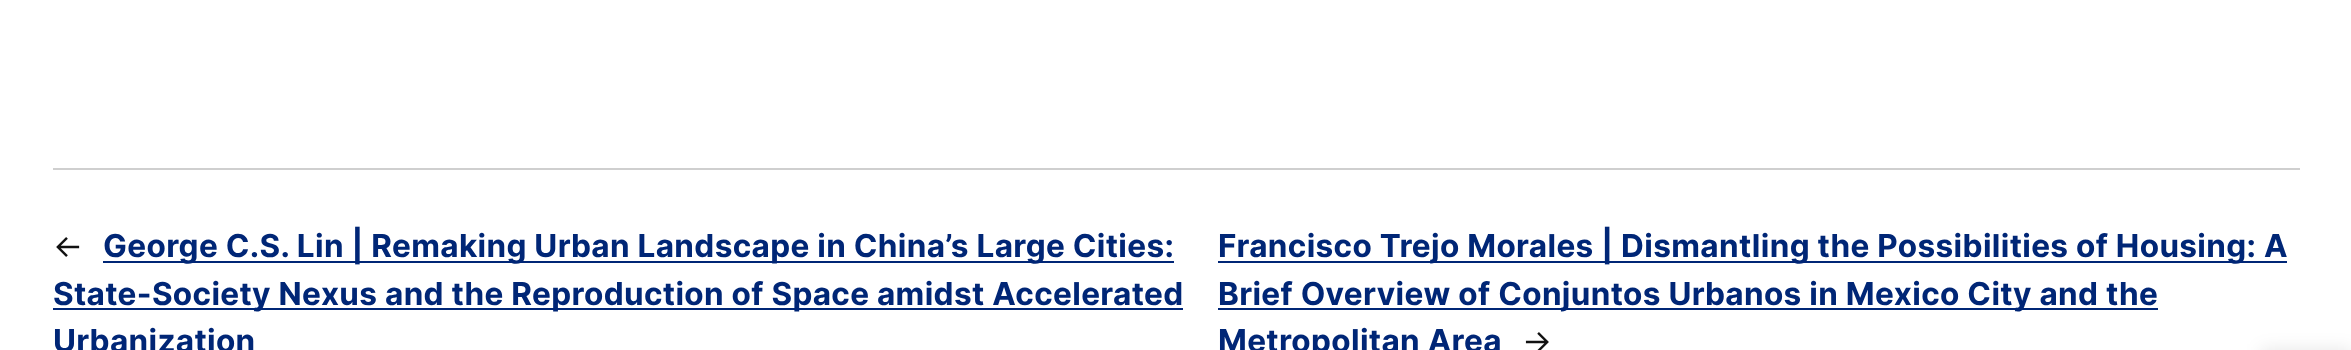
<!DOCTYPE html>
<meta charset="utf-8">
<style>body { margin: 0 } canvas { display: block }</style>
<canvas id="canvas" width="2351" height="350"></canvas>
<script>
window.onload = function () {
    const canvas = document.getElementById('canvas');
    const context = canvas.getContext('2d');
    context.miterLimit = 4;
    context.fontKerning = 'normal';

    context.fillStyle = 'rgb(255, 255, 255)';
    context.fillRect(0, 0, 2351, 350);
    context.fillStyle = 'rgb(207, 207, 207)';
    context.fillRect(53, 168, 2247, 2);
    context.fillStyle = 'rgb(0, 38, 118)';
    context.fillRect(103, 261, 1071, 2);
    context.fillRect(53, 308, 1130, 2);
    context.fillRect(1218, 261, 1069, 2);
    context.fillRect(1218, 308, 940, 2);
    context.fillStyle = 'rgba(0, 0, 0, 0.1)';
    context.filter = 'blur(9px)';
    context.beginPath();
    context.rect(2261, 350, 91, 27);
    context.fill();
    context.filter = 'none';
    context.letterSpacing = '0.35px';
    context.font = '31.5px Inter';
    context.fillStyle = 'rgb(17, 17, 17)';
    context.fillText('←', 53, 257);
    context.font = 'bold 31.5px Inter';
    context.fillStyle = 'rgb(0, 38, 118)';
    context.fillText('George C.S. Lin | Remaking Urban Landscape in China’s Large Cities:', 103, 257);
    context.fillText('State-Society Nexus and the Reproduction of Space amidst Accelerated', 53, 305);
    context.fillText('Urbanization', 53, 352);
    context.fillText('Francisco Trejo Morales | Dismantling the Possibilities of Housing: A', 1218, 257);
    context.fillText('Brief Overview of Conjuntos Urbanos in Mexico City and the', 1218, 305);
    context.fillText('Metropolitan Area', 1218, 352);
    context.font = '31.5px Inter';
    context.fillStyle = 'rgb(17, 17, 17)';
    context.fillText('→', 1522, 352);
};
</script>
